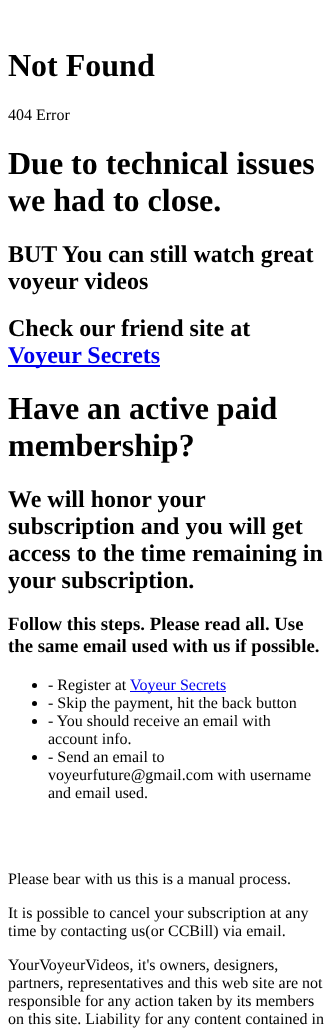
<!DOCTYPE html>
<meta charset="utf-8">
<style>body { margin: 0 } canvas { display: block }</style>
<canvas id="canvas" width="332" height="1036"></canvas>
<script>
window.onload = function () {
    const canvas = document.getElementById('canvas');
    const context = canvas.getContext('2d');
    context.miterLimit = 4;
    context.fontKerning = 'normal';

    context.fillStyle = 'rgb(255, 255, 255)';
    context.fillRect(0, 0, 332, 1036);
    context.fillStyle = 'rgb(0, 0, 238)';
    context.fillRect(8, 365, 152, 2);
    context.fillStyle = 'rgb(0, 0, 0)';
    context.beginPath();
    context.arc(34.5, 685.5, 2.5, 0, 2 * Math.PI);
    context.fill();
    context.fillStyle = 'rgb(0, 0, 238)';
    context.fillRect(130, 691, 96, 1);
    context.fillStyle = 'rgb(0, 0, 0)';
    context.beginPath();
    context.arc(34.5, 703.5, 2.5, 0, 2 * Math.PI);
    context.fill();
    context.beginPath();
    context.arc(34.5, 721.5, 2.5, 0, 2 * Math.PI);
    context.fill();
    context.beginPath();
    context.arc(34.5, 757.5, 2.5, 0, 2 * Math.PI);
    context.fill();
    context.font = 'bold 32px Liberation Serif';
    context.fillText('Not Found', 8, 76);
    context.font = '16px Liberation Serif';
    context.fillText('404 Error', 8, 120);
    context.font = 'bold 32px Liberation Serif';
    context.fillText('Due to technical issues', 8, 174);
    context.fillText('we had to close.', 8, 211);
    context.font = 'bold 24px Liberation Serif';
    context.fillText('BUT You can still watch great', 8, 262);
    context.fillText('voyeur videos', 8, 289);
    context.fillText('Check our friend site at', 8, 336);
    context.fillStyle = 'rgb(0, 0, 238)';
    context.fillText('Voyeur Secrets', 8, 363);
    context.font = 'bold 32px Liberation Serif';
    context.fillStyle = 'rgb(0, 0, 0)';
    context.fillText('Have an active paid', 8, 419);
    context.fillText('membership?', 8, 456);
    context.font = 'bold 24px Liberation Serif';
    context.fillText('We will honor your', 8, 507);
    context.fillText('subscription and you will get', 8, 534);
    context.fillText('access to the time remaining in', 8, 561);
    context.fillText('your subscription.', 8, 588);
    context.font = 'bold 18.75px Liberation Serif';
    context.fillText('Follow this steps. Please read all. Use', 8, 630);
    context.fillText('the same email used with us if possible.', 8, 652);
    context.font = '16px Liberation Serif';
    context.fillText('- Register at', 48, 690);
    context.fillStyle = 'rgb(0, 0, 238)';
    context.fillText('Voyeur Secrets', 130, 690);
    context.fillStyle = 'rgb(0, 0, 0)';
    context.fillText('- Skip the payment, hit the back button', 48, 708);
    context.fillText('- You should receive an email with', 48, 726);
    context.fillText('account info.', 48, 744);
    context.fillText('- Send an email to', 48, 762);
    context.fillText('voyeurfuture@gmail.com with username', 48, 780);
    context.fillText('and email used.', 48, 798);
    context.fillText('Please bear with us this is a manual process.', 8, 884);
    context.fillText('It is possible to cancel your subscription at any', 8, 918);
    context.fillText('time by contacting us(or CCBill) via email.', 8, 936);
    context.fillText('YourVoyeurVideos, it\'s owners, designers,', 8, 970);
    context.fillText('partners, representatives and this web site are not', 8, 988);
    context.fillText('responsible for any action taken by its members', 8, 1006);
    context.fillText('on this site. Liability for any content contained in', 8, 1024);
};
</script>
